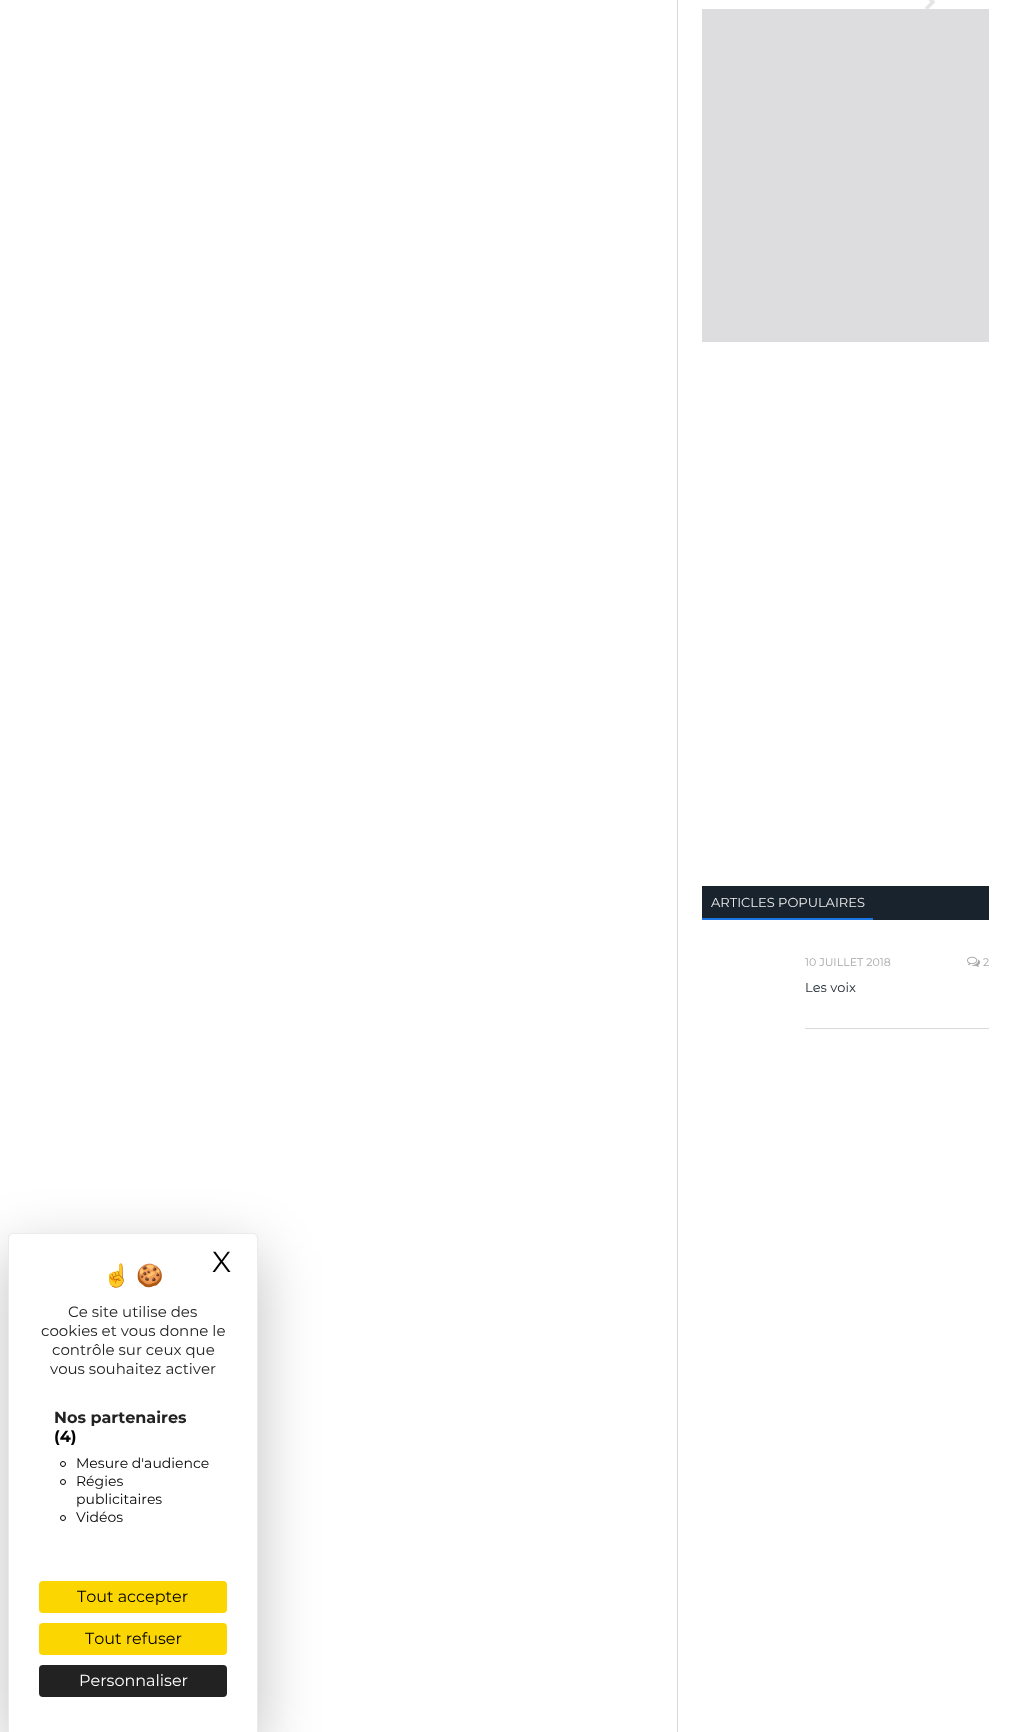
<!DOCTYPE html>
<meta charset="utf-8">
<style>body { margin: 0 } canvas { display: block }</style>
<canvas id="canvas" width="1014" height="1732"></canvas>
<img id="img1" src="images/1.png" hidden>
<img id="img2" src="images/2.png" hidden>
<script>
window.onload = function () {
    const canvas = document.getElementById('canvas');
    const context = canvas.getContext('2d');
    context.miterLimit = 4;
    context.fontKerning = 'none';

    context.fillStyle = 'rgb(255, 255, 255)';
    context.fillRect(0, 0, 1014, 1732);
    context.fillStyle = 'rgb(217, 217, 217)';
    context.fillRect(677, 0, 1, 1732);
    context.drawImage(document.getElementById('img1'), 925, 0, 10, 9);
    context.fillStyle = 'rgb(221, 221, 223)';
    context.fillRect(702, 9, 287, 333);
    context.fillStyle = 'rgb(25, 35, 45)';
    context.fillRect(702, 886, 287, 34);
    context.fillStyle = 'rgb(27, 117, 226)';
    context.fillRect(702, 918, 171, 2);
    context.fillStyle = 'rgb(217, 217, 217)';
    context.fillRect(805, 1028, 184, 1);
    context.drawImage(document.getElementById('img2'), 967, 956, 13, 11);
    context.fillStyle = 'rgba(0, 0, 0, 0.25)';
    context.filter = 'blur(30px)';
    context.beginPath();
    context.roundRect(8, 1253, 250, 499, 5);
    context.fill();
    context.filter = 'none';
    context.fillStyle = 'rgb(255, 255, 255)';
    context.beginPath();
    context.roundRect(8, 1233, 250, 499, [5, 5, 0, 0]);
    context.fill();
    context.fillStyle = 'rgb(235, 235, 235)';
    context.beginPath();
    context.moveTo(13, 1233);
    context.lineTo(253, 1233);
    context.bezierCurveTo(256, 1233, 258, 1235, 258, 1238);
    context.lineTo(258, 1732);
    context.lineTo(8, 1732);
    context.lineTo(8, 1238);
    context.bezierCurveTo(8, 1235, 10, 1233, 13, 1233);
    context.closePath();
    context.moveTo(13, 1234);
    context.lineTo(253, 1234);
    context.bezierCurveTo(255, 1234, 257, 1236, 257, 1238);
    context.lineTo(257, 1732);
    context.lineTo(9, 1732);
    context.lineTo(9, 1238);
    context.bezierCurveTo(9, 1236, 11, 1234, 13, 1234);
    context.closePath();
    context.fill('evenodd');
    context.beginPath();
    context.arc(63, 1464, 2.5, 0, 2 * Math.PI);
    context.strokeStyle = 'rgb(0, 0, 0)';
    context.stroke();
    context.beginPath();
    context.arc(63, 1482, 2.5, 0, 2 * Math.PI);
    context.stroke();
    context.beginPath();
    context.arc(63, 1518, 2.5, 0, 2 * Math.PI);
    context.stroke();
    context.fillStyle = 'rgb(251, 214, 0)';
    context.beginPath();
    context.roundRect(39, 1581, 188, 32, 4);
    context.fill();
    context.beginPath();
    context.roundRect(39, 1623, 188, 32, 4);
    context.fill();
    context.fillStyle = 'rgb(34, 34, 34)';
    context.beginPath();
    context.roundRect(39, 1665, 188, 32, 4);
    context.fill();
    context.font = '13px Montserrat';
    context.fillStyle = 'rgb(239, 239, 239)';
    context.fillText('ARTICLES POPULAIRES', 711, 907);
    context.font = '11px Montserrat';
    context.fillStyle = 'rgb(166, 166, 166)';
    context.fillText('10 JUILLET 2018', 805, 966);
    context.fillText('2', 983, 966);
    context.font = '13px Montserrat Alternates';
    context.fillStyle = 'rgb(25, 35, 45)';
    context.fillText('Les voix', 805, 992);
    context.font = '22px Noto Color Emoji';
    context.fillStyle = 'rgb(34, 34, 34)';
    context.fillText('☝️', 103, 1283);
    context.fillText('🍪', 136, 1283);
    context.font = '29px Montserrat';
    context.fillStyle = 'rgb(0, 0, 0)';
    context.fillText('X', 212, 1272);
    context.font = '15px Montserrat';
    context.fillStyle = 'rgb(34, 34, 34)';
    context.fillText('Ce site utilise des', 68, 1317);
    context.fillText('cookies et vous donne le', 41, 1336);
    context.fillText('contrôle sur ceux que', 52, 1355);
    context.fillText('vous souhaitez activer', 50, 1374);
    context.font = 'bold 16px Montserrat';
    context.fillText('Nos partenaires', 54, 1423);
    context.fillStyle = 'rgb(0, 0, 0)';
    context.fillText('(4)', 54, 1442);
    context.font = '14px Montserrat';
    context.fillText('Mesure d\'audience', 76, 1468);
    context.fillText('Régies', 76, 1486);
    context.fillText('publicitaires', 76, 1504);
    context.fillText('Vidéos', 76, 1522);
    context.font = '16px Montserrat';
    context.fillText('Tout accepter', 77, 1602);
    context.fillText('Tout refuser', 85, 1644);
    context.fillStyle = 'rgb(255, 255, 255)';
    context.fillText('Personnaliser', 79, 1686);
};
</script>
